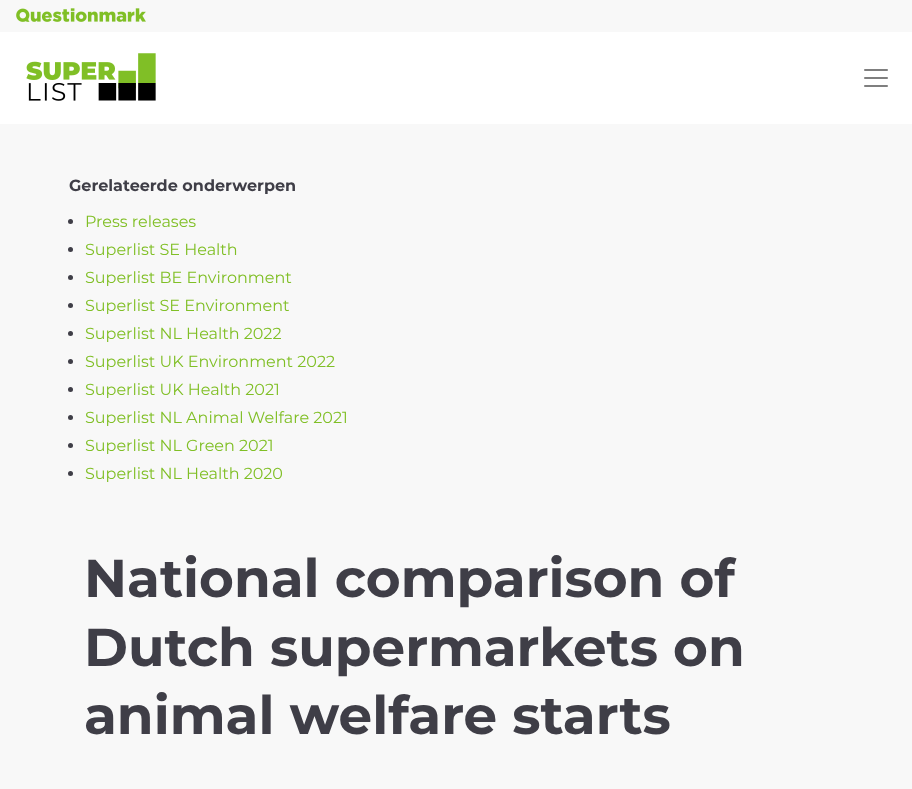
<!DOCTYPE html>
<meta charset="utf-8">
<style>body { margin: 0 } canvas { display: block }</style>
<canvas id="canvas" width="912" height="789"></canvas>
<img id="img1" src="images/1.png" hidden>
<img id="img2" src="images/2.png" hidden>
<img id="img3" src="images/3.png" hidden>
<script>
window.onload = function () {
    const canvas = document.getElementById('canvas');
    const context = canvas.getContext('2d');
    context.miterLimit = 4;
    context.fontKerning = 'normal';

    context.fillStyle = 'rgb(248, 248, 248)';
    context.fillRect(0, 0, 912, 789);
    context.drawImage(document.getElementById('img1'), 16, 8, 130, 14);
    context.fillStyle = 'rgb(255, 255, 255)';
    context.fillRect(0, 32, 912, 92);
    context.drawImage(document.getElementById('img2'), 26, 53, 130, 48);
    context.drawImage(document.getElementById('img3'), 864, 69, 24, 18);
    context.fillStyle = 'rgb(63, 62, 71)';
    context.beginPath();
    context.arc(70.5, 221.5, 2.5, 0, 2 * Math.PI);
    context.fill();
    context.beginPath();
    context.arc(70.5, 249.5, 2.5, 0, 2 * Math.PI);
    context.fill();
    context.beginPath();
    context.arc(70.5, 277.5, 2.5, 0, 2 * Math.PI);
    context.fill();
    context.beginPath();
    context.arc(70.5, 305.5, 2.5, 0, 2 * Math.PI);
    context.fill();
    context.beginPath();
    context.arc(70.5, 333.5, 2.5, 0, 2 * Math.PI);
    context.fill();
    context.beginPath();
    context.arc(70.5, 361.5, 2.5, 0, 2 * Math.PI);
    context.fill();
    context.beginPath();
    context.arc(70.5, 389.5, 2.5, 0, 2 * Math.PI);
    context.fill();
    context.beginPath();
    context.arc(70.5, 417.5, 2.5, 0, 2 * Math.PI);
    context.fill();
    context.beginPath();
    context.arc(70.5, 445.5, 2.5, 0, 2 * Math.PI);
    context.fill();
    context.beginPath();
    context.arc(70.5, 473.5, 2.5, 0, 2 * Math.PI);
    context.fill();
    context.font = 'bold 16px Montserrat';
    context.fillText('Gerelateerde onderwerpen', 69, 191);
    context.font = '16px Montserrat';
    context.fillStyle = 'rgb(128, 191, 38)';
    context.fillText('Press releases', 85, 227);
    context.fillText('Superlist SE Health', 85, 255);
    context.fillText('Superlist BE Environment', 85, 283);
    context.fillText('Superlist SE Environment', 85, 311);
    context.fillText('Superlist NL Health 2022', 85, 339);
    context.fillText('Superlist UK Environment 2022', 85, 367);
    context.fillText('Superlist UK Health 2021', 85, 395);
    context.fillText('Superlist NL Animal Welfare 2021', 85, 423);
    context.fillText('Superlist NL Green 2021', 85, 451);
    context.fillText('Superlist NL Health 2020', 85, 479);
    context.font = 'bold 53.25px Montserrat';
    context.fillStyle = 'rgb(63, 62, 71)';
    context.fillText('National comparison of', 84, 597);
    context.fillText('Dutch supermarkets on', 84, 666);
    context.fillText('animal welfare starts', 84, 734);
};
</script>
